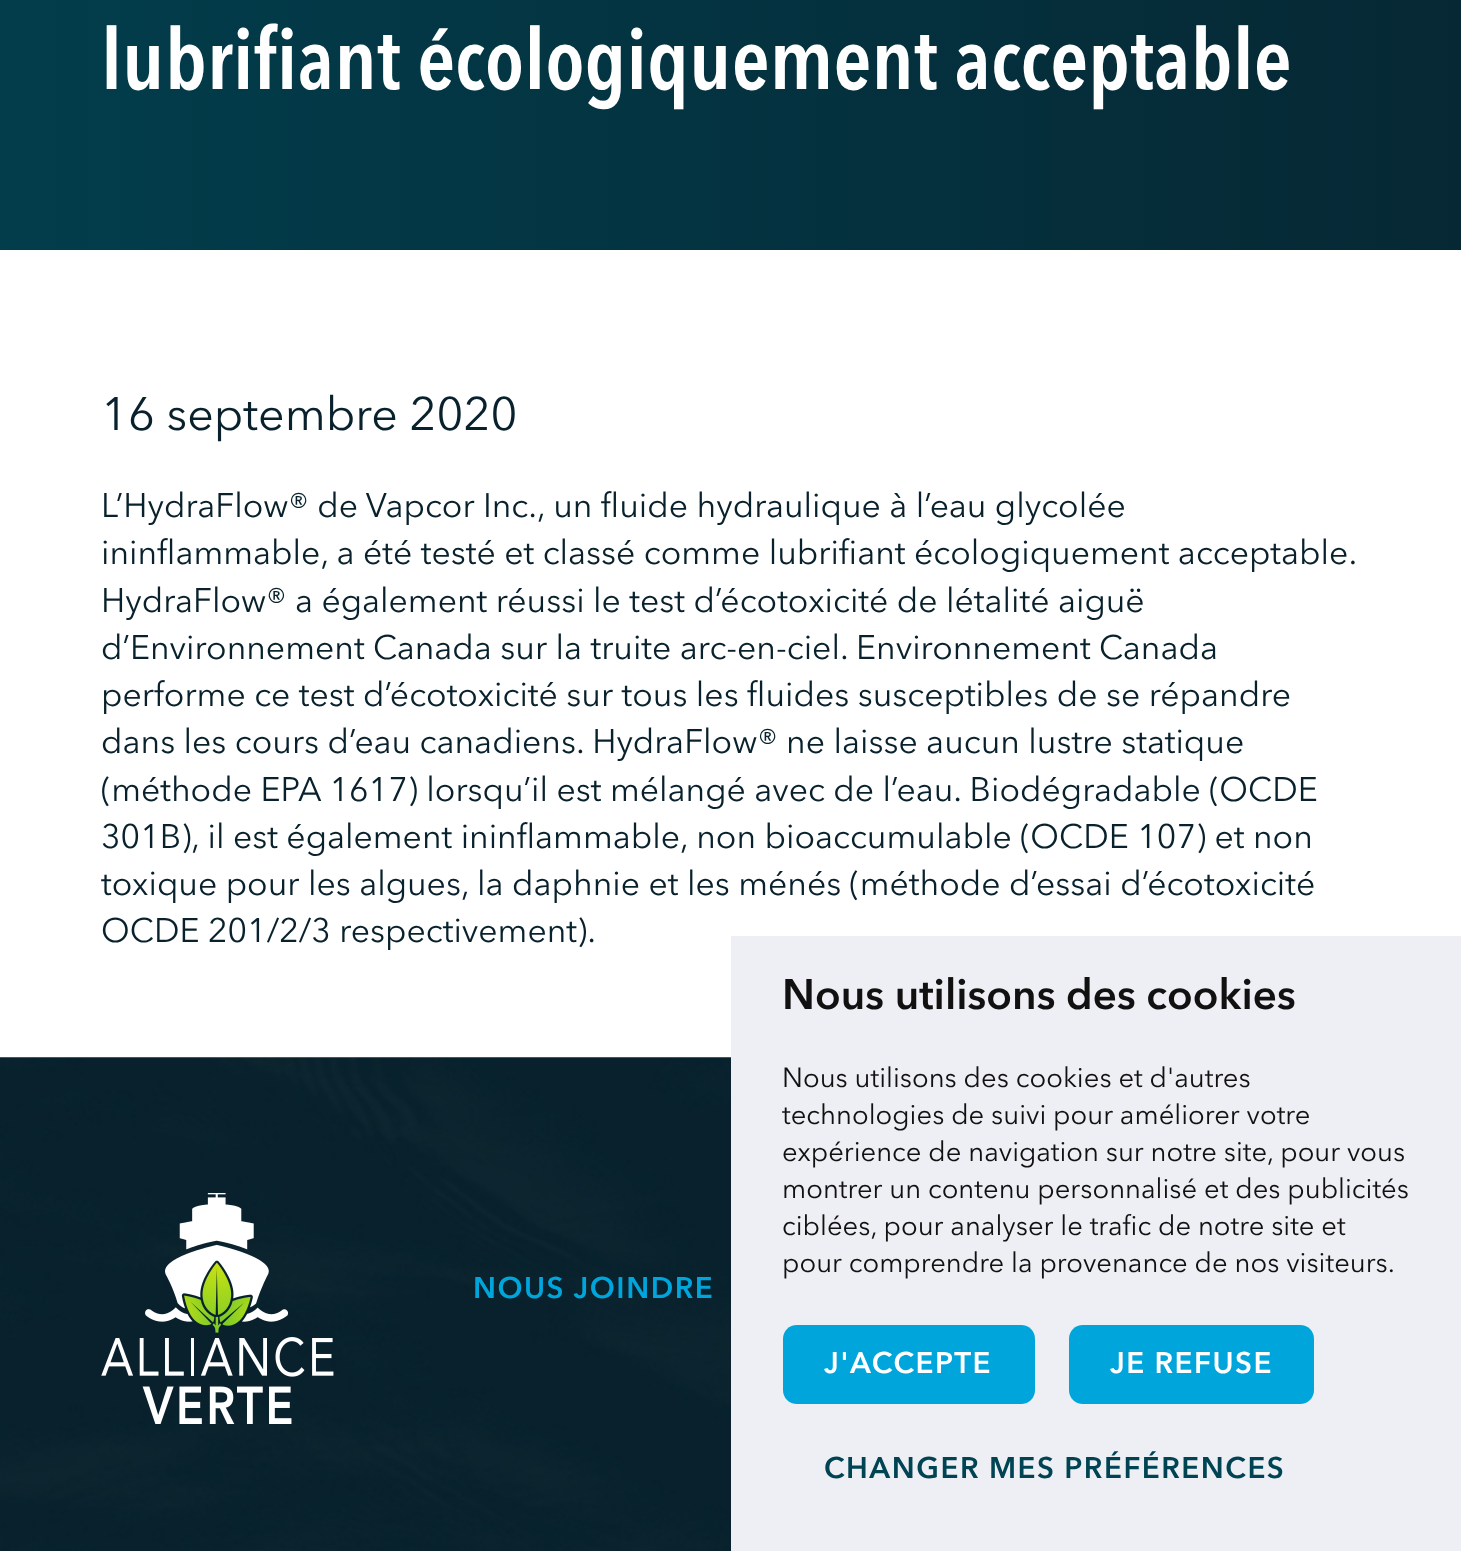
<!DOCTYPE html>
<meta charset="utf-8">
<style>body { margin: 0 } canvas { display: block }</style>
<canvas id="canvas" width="1461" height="1551"></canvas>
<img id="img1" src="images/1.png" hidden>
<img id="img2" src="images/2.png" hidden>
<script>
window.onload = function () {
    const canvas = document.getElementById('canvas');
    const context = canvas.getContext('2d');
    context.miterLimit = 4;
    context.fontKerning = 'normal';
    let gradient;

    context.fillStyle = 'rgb(255, 255, 255)';
    context.fillRect(0, 0, 1461, 1551);
    gradient = context.createLinearGradient(0, -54, 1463, -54);
    gradient.addColorStop(0, 'rgb(2, 61, 76)');
    gradient.addColorStop(1, 'rgb(6, 40, 52)');
    context.fillStyle = gradient;
    context.fillRect(0, 0, 1461, 250);
    context.drawImage(document.getElementById('img1'), 0, 1057, 731, 494);
    context.drawImage(document.getElementById('img2'), 101, 1193, 233, 231);
    context.fillStyle = 'rgb(238, 239, 244)';
    context.fillRect(731, 936, 730, 615);
    context.fillStyle = 'rgb(0, 165, 219)';
    context.beginPath();
    context.moveTo(797, 1325);
    context.bezierCurveTo(789, 1325, 783, 1331, 783, 1339);
    context.lineTo(783, 1390);
    context.bezierCurveTo(783, 1398, 789, 1404, 797, 1404);
    context.lineTo(1021, 1404);
    context.bezierCurveTo(1029, 1404, 1035, 1398, 1035, 1390);
    context.lineTo(1035, 1339);
    context.bezierCurveTo(1035, 1331, 1029, 1325, 1021, 1325);
    context.closePath();
    context.fill();
    context.beginPath();
    context.moveTo(1083, 1325);
    context.bezierCurveTo(1075, 1325, 1069, 1331, 1069, 1339);
    context.lineTo(1069, 1390);
    context.bezierCurveTo(1069, 1398, 1075, 1404, 1083, 1404);
    context.lineTo(1300, 1404);
    context.bezierCurveTo(1308, 1404, 1314, 1398, 1314, 1390);
    context.lineTo(1314, 1339);
    context.bezierCurveTo(1314, 1331, 1308, 1325, 1300, 1325);
    context.closePath();
    context.fill();
    context.font = '600 84.4px Avenir Next';
    context.fillStyle = 'rgb(255, 255, 255)';
    context.fillText('lubrifiant écologiquement acceptable', 101, 89);
    context.font = '46.5px Avenir Next';
    context.fillStyle = 'rgb(8, 33, 44)';
    context.fillText('16 septembre 2020', 101, 430);
    context.font = '33.75px Avenir Next';
    context.fillText('L’HydraFlow® de Vapcor Inc., un fluide hydraulique à l’eau glycolée', 101, 517);
    context.fillText('ininflammable, a été testé et classé comme lubrifiant écologiquement acceptable.', 101, 564);
    context.fillText('HydraFlow® a également réussi le test d’écotoxicité de létalité aiguë', 101, 612);
    context.fillText('d’Environnement Canada sur la truite arc-en-ciel. Environnement Canada', 101, 659);
    context.fillText('performe ce test d’écotoxicité sur tous les fluides susceptibles de se répandre', 101, 706);
    context.fillText('dans les cours d’eau canadiens. HydraFlow® ne laisse aucun lustre statique', 101, 753);
    context.fillText('(méthode EPA 1617) lorsqu’il est mélangé avec de l’eau. Biodégradable (OCDE', 101, 801);
    context.fillText('301B), il est également ininflammable, non bioaccumulable (OCDE 107) et non', 101, 848);
    context.fillText('toxique pour les algues, la daphnie et les ménés (méthode d’essai d’écotoxicité', 101, 895);
    context.fillText('OCDE 201/2/3 respectivement).', 101, 942);
    context.letterSpacing = '1.5px';
    context.font = '600 29.5px "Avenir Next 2"';
    context.fillStyle = 'rgb(0, 165, 219)';
    context.fillText('NOUS JOINDRE', 473, 1298);
    context.letterSpacing = '0px';
    context.font = '600 42.25px "Avenir Next 2"';
    context.fillStyle = 'rgb(17, 17, 17)';
    context.fillText('Nous utilisons des cookies', 782, 1009);
    context.font = '27.4px Avenir Next';
    context.fillText('Nous utilisons des cookies et d\'autres', 782, 1087);
    context.fillText('technologies de suivi pour améliorer votre', 782, 1124);
    context.fillText('expérience de navigation sur notre site, pour vous', 782, 1161);
    context.fillText('montrer un contenu personnalisé et des publicités', 782, 1198);
    context.fillText('ciblées, pour analyser le trafic de notre site et', 782, 1235);
    context.fillText('pour comprendre la provenance de nos visiteurs.', 782, 1272);
    context.letterSpacing = '1.5px';
    context.font = '600 29.5px "Avenir Next 2"';
    context.fillStyle = 'rgb(255, 255, 255)';
    context.fillText('J\'ACCEPTE', 824, 1373);
    context.fillText('JE REFUSE', 1110, 1373);
    context.fillStyle = 'rgb(0, 68, 84)';
    context.fillText('CHANGER MES PRÉFÉRENCES', 824, 1478);
};
</script>
